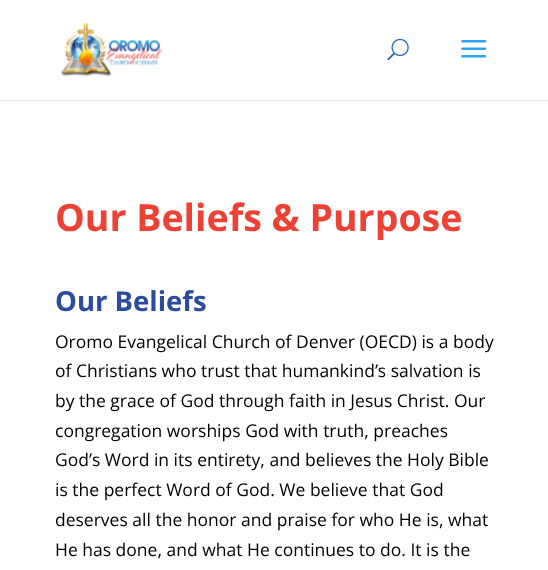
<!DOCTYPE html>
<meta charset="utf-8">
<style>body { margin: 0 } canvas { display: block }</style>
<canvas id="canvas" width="548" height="570"></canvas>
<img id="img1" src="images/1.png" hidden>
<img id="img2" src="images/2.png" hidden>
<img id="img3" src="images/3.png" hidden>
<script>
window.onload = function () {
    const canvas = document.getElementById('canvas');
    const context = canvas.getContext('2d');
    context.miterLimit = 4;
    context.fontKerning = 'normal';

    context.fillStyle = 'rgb(255, 255, 255)';
    context.fillRect(0, 0, 548, 570);
    context.fillStyle = 'rgb(230, 230, 230)';
    context.beginPath();
    context.moveTo(0, 100);
    context.lineTo(0, 101);
    context.lineTo(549, 101);
    context.lineTo(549, 1);
    context.lineTo(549, 100);
    context.closePath();
    context.fill();
    context.drawImage(document.getElementById('img1'), 61, 22, 101, 55);
    context.drawImage(document.getElementById('img2'), 387, 38, 22, 23);
    context.drawImage(document.getElementById('img3'), 461, 40, 26, 18);
    context.font = 'bold 37.5px Open Sans';
    context.fillStyle = 'rgb(238, 65, 54)';
    context.fillText('Our Beliefs & Purpose', 55, 231);
    context.font = 'bold 27.5px Open Sans';
    context.fillStyle = 'rgb(43, 75, 158)';
    context.fillText('Our Beliefs', 55, 311);
    context.font = '17.5px Open Sans';
    context.fillStyle = 'rgb(0, 0, 0)';
    context.fillText('Oromo Evangelical Church of Denver (OECD) is a body', 55, 348);
    context.fillText('of Christians who trust that humankind’s salvation is', 55, 377);
    context.fillText('by the grace of God through faith in Jesus Christ. Our', 55, 407);
    context.fillText('congregation worships God with truth, preaches', 55, 437);
    context.fillText('God’s Word in its entirety, and believes the Holy Bible', 55, 466);
    context.fillText('is the perfect Word of God. We believe that God', 55, 496);
    context.fillText('deserves all the honor and praise for who He is, what', 55, 526);
    context.fillText('He has done, and what He continues to do. It is the', 55, 556);
};
</script>
